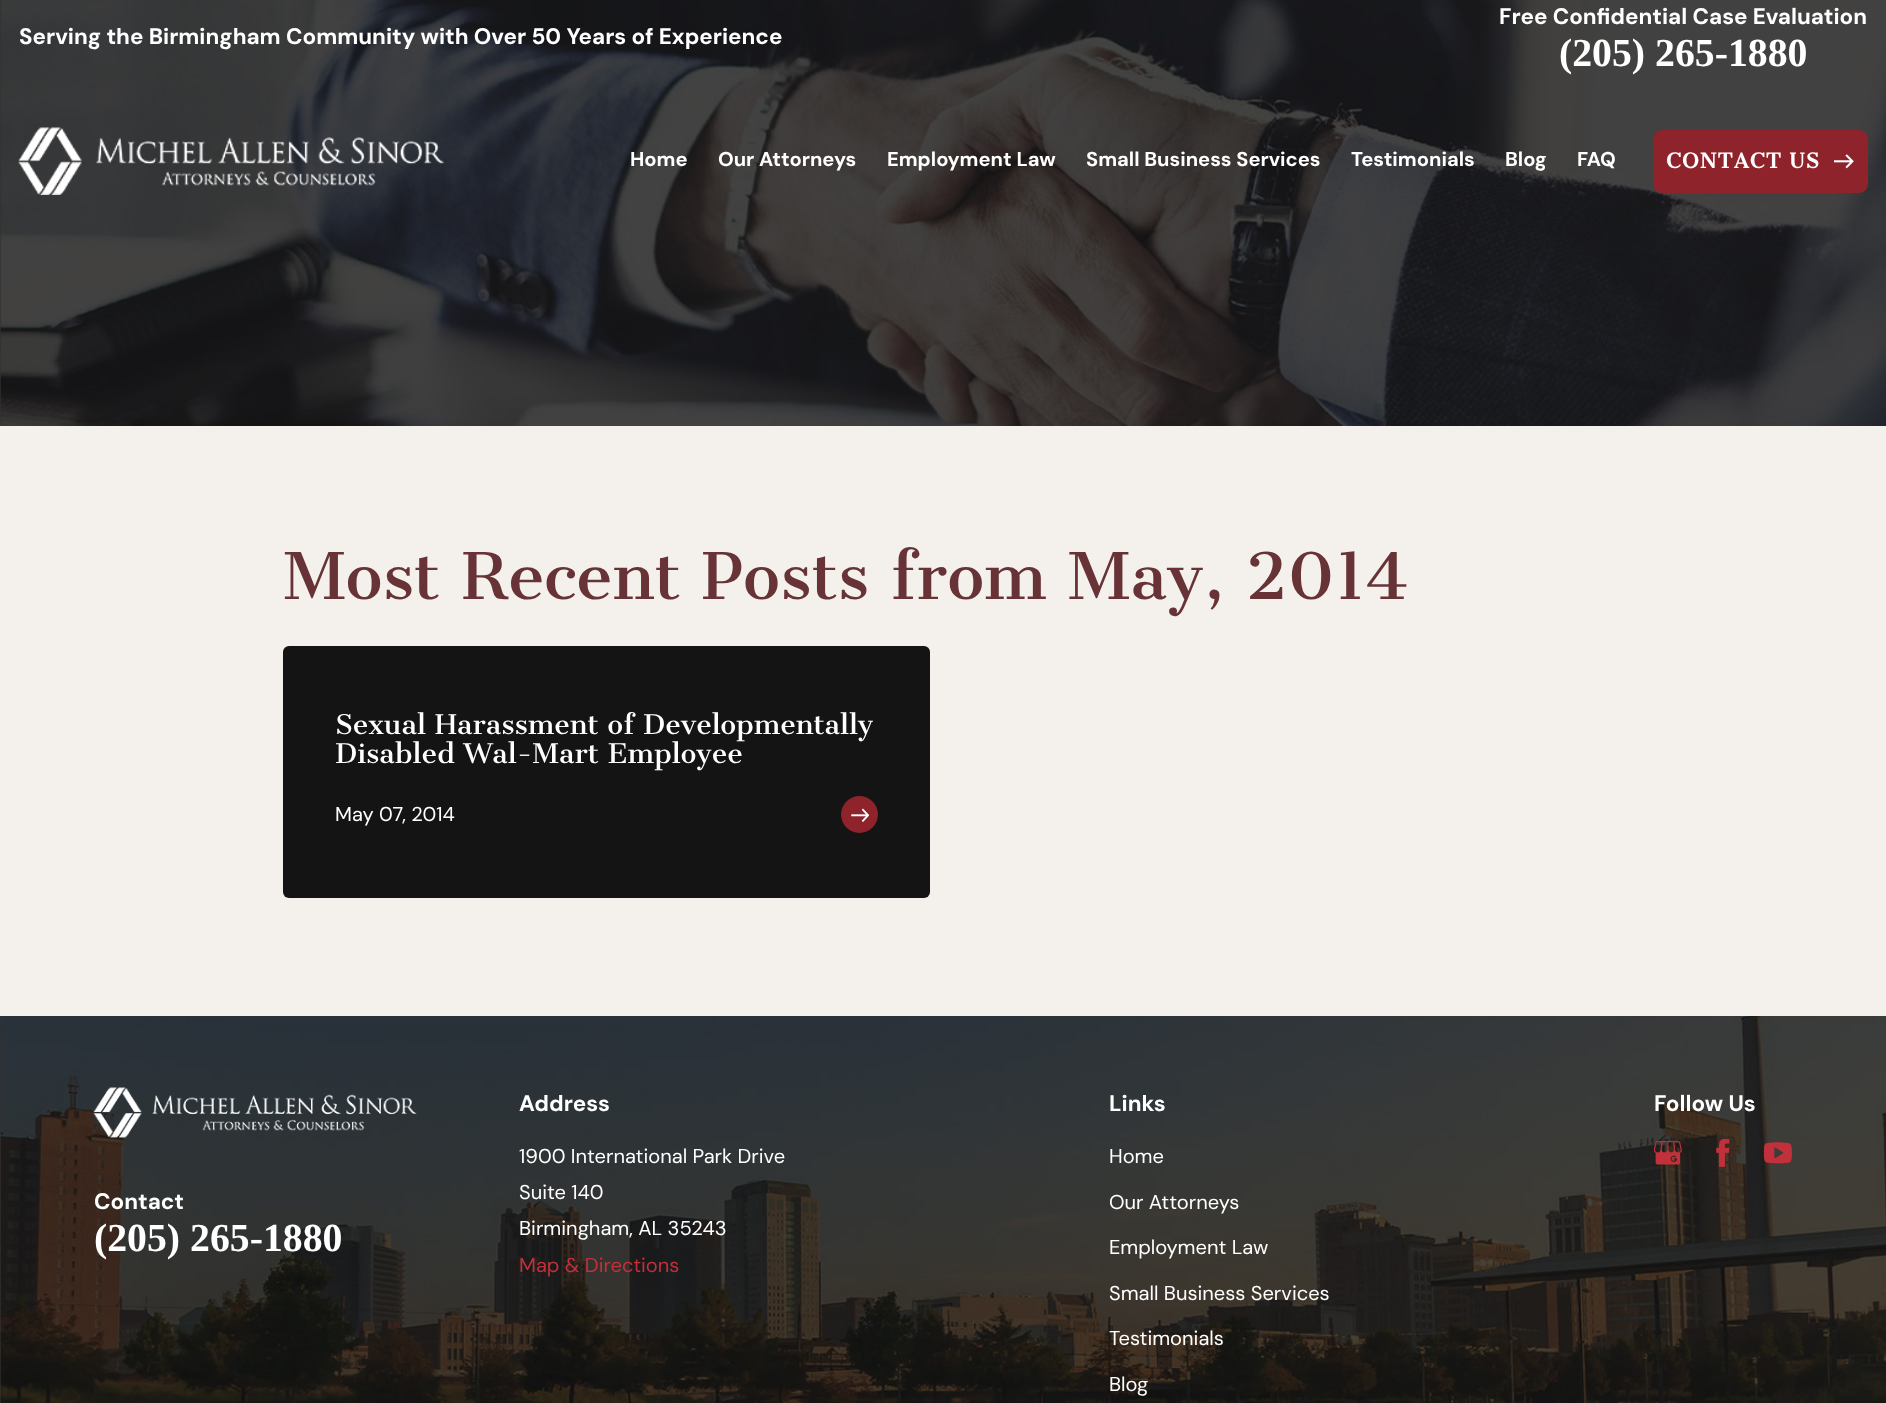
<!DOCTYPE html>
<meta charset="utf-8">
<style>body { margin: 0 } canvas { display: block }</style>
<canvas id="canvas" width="1886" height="1403"></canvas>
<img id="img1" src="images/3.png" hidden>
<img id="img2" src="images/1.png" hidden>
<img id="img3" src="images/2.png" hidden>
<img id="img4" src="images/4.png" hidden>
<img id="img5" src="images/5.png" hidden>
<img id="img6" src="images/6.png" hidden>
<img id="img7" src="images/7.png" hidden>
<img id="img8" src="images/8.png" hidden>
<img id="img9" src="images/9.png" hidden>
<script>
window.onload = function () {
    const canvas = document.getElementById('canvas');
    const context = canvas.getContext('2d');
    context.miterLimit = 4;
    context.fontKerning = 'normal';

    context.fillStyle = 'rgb(52, 52, 52)';
    context.fillRect(0, 0, 1886, 1403);
    context.drawImage(document.getElementById('img1'), 0, 0, 1886, 426);
    context.drawImage(document.getElementById('img2'), 18, 127, 426, 68);
    context.fillStyle = 'rgb(142, 35, 43)';
    context.beginPath();
    context.roundRect(1653, 130, 215, 63, 9);
    context.fill();
    context.drawImage(document.getElementById('img3'), 1834, 154, 20, 15);
    context.fillStyle = 'rgb(244, 241, 236)';
    context.fillRect(0, 426, 1886, 590);
    context.fillStyle = 'rgb(20, 20, 20)';
    context.beginPath();
    context.roundRect(283, 646, 647, 252, 6);
    context.fill();
    context.fillStyle = 'rgb(142, 35, 43)';
    context.beginPath();
    context.arc(859.5, 814.5, 18.5, 0, 2 * Math.PI);
    context.fill();
    context.drawImage(document.getElementById('img4'), 851, 808, 18, 14);
    context.drawImage(document.getElementById('img5'), 0, 1016, 1886, 387);
    context.drawImage(document.getElementById('img6'), 93, 1087, 324, 51);
    context.drawImage(document.getElementById('img7'), 1654, 1141, 28, 24);
    context.drawImage(document.getElementById('img8'), 1716, 1139, 14, 28);
    context.drawImage(document.getElementById('img9'), 1764, 1142, 28, 22);
    context.font = 'bold 22.4px DM Sans';
    context.fillStyle = 'rgb(255, 255, 255)';
    context.fillText('Serving the Birmingham Community with Over 50 Years of Experience', 19, 44);
    context.fillText('Free Confidential Case Evaluation', 1499, 24);
    context.font = 'bold 39.75px Liberation Serif';
    context.fillText('(205) 265-1880', 1559, 66);
    context.font = 'bold 20.1px DM Sans';
    context.fillText('Home', 630, 166);
    context.fillText('Our Attorneys', 718, 166);
    context.fillText('Employment Law', 887, 166);
    context.fillText('Small Business Services', 1086, 166);
    context.fillText('Testimonials', 1351, 166);
    context.fillText('Blog', 1505, 166);
    context.fillText('FAQ', 1577, 166);
    context.letterSpacing = '1px';
    context.font = 'bold 20.1px Cantata One';
    context.fillText('CONTACT US', 1666, 168);
    context.letterSpacing = '0px';
    context.font = '62.8px Cantata One';
    context.fillStyle = 'rgb(104, 51, 55)';
    context.fillText('Most Recent Posts from May, 2014', 283, 599);
    context.font = '26.6px Cantata One';
    context.fillStyle = 'rgb(255, 255, 255)';
    context.fillText('Sexual Harassment of Developmentally', 335, 734);
    context.fillText('Disabled Wal-Mart Employee', 335, 763);
    context.font = '20.1px DM Sans';
    context.fillText('May 07, 2014', 335, 821);
    context.font = 'bold 22.4px DM Sans';
    context.fillText('Contact', 94, 1209);
    context.font = 'bold 39.75px Liberation Serif';
    context.fillText('(205) 265-1880', 94, 1251);
    context.font = 'bold 22.4px DM Sans';
    context.fillText('Address', 519, 1111);
    context.font = '20.1px DM Sans';
    context.fillText('1900 International Park Drive', 519, 1163);
    context.fillText('Suite 140', 519, 1199);
    context.fillText('Birmingham, AL 35243', 519, 1235);
    context.fillStyle = 'rgb(193, 48, 59)';
    context.fillText('Map & Directions', 519, 1272);
    context.font = 'bold 22.4px DM Sans';
    context.fillStyle = 'rgb(255, 255, 255)';
    context.fillText('Links', 1109, 1111);
    context.font = '20.1px DM Sans';
    context.fillText('Home', 1109, 1163);
    context.fillText('Our Attorneys', 1109, 1209);
    context.fillText('Employment Law', 1109, 1254);
    context.fillText('Small Business Services', 1109, 1300);
    context.fillText('Testimonials', 1109, 1345);
    context.fillText('Blog', 1109, 1391);
    context.font = 'bold 22.4px DM Sans';
    context.fillText('Follow Us', 1654, 1111);
};
</script>
